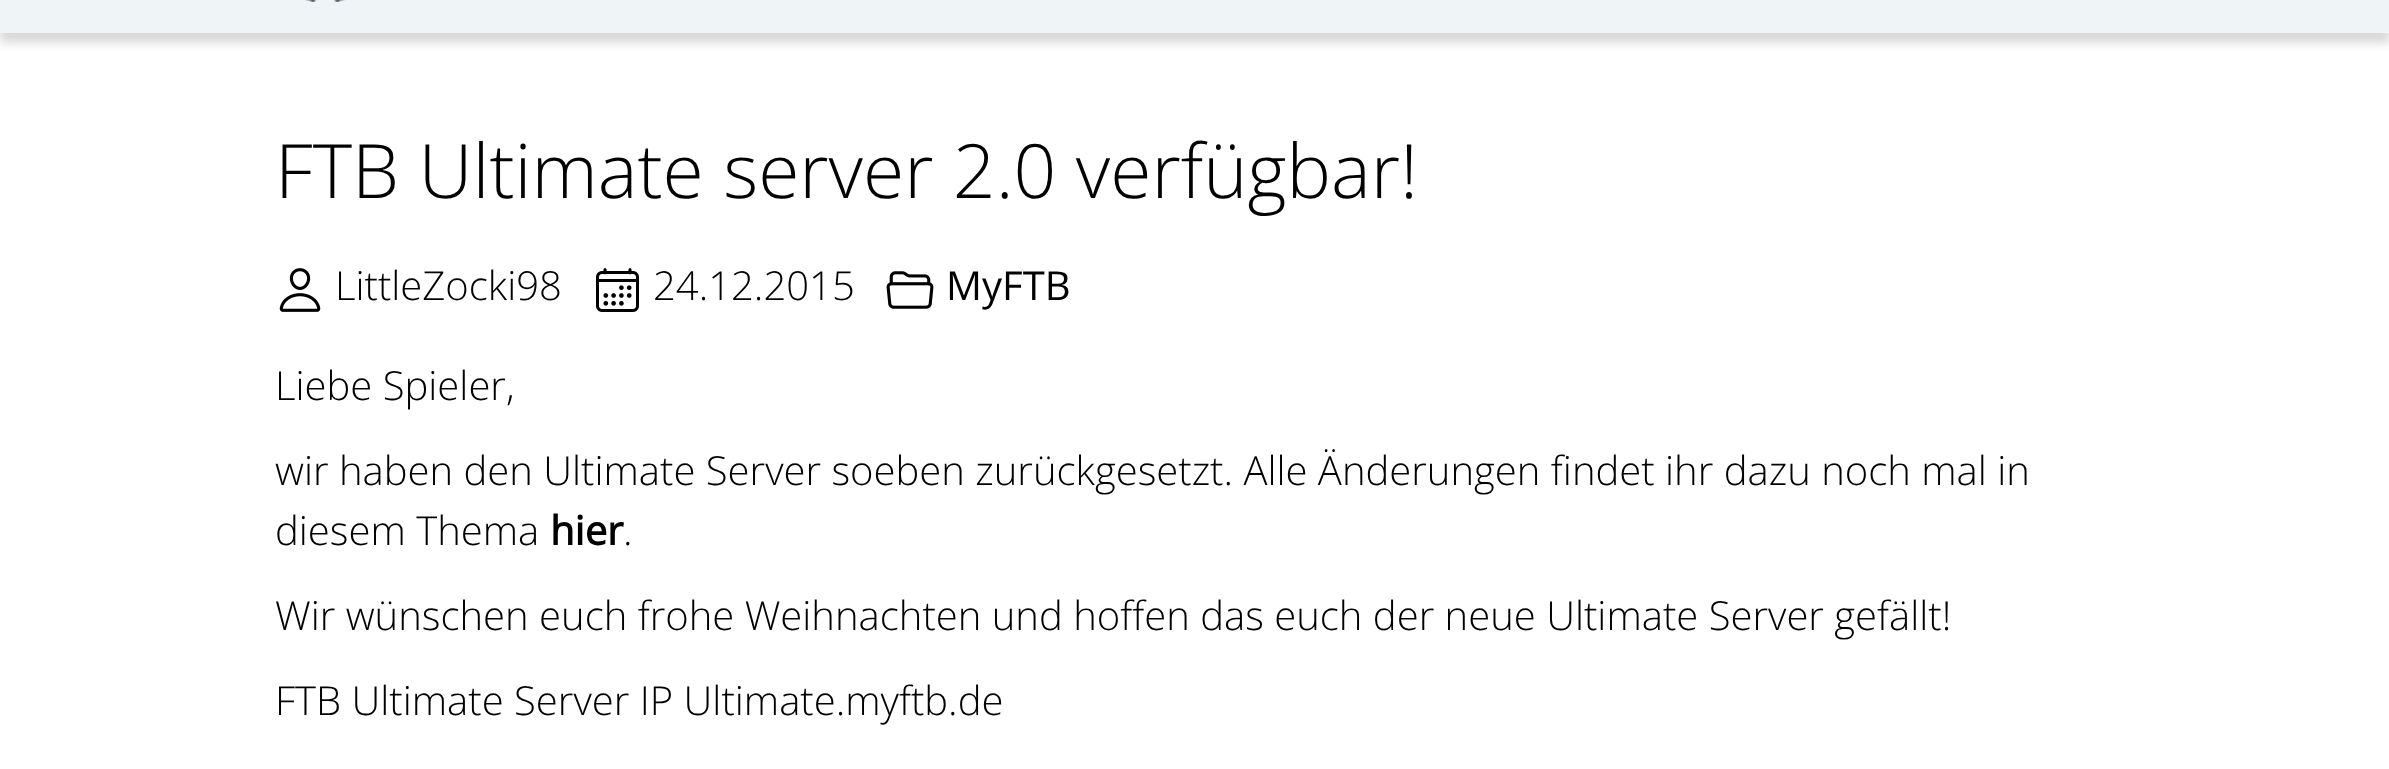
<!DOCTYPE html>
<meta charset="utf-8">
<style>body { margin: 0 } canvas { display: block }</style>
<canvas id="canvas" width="2389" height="769"></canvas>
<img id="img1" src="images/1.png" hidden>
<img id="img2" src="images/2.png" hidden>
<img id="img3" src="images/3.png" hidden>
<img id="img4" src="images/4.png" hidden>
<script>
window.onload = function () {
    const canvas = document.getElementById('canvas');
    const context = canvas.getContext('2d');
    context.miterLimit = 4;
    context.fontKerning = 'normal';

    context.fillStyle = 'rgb(255, 255, 255)';
    context.fillRect(0, 0, 2389, 769);
    context.fillStyle = 'rgba(0, 0, 0, 0.15)';
    context.filter = 'blur(5px)';
    context.beginPath();
    context.rect(0, -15, 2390, 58);
    context.fill();
    context.filter = 'none';
    context.fillStyle = 'rgb(239, 245, 246)';
    context.fillRect(0, 0, 2389, 33);
    context.drawImage(document.getElementById('img1'), 305, 0, 41, 2);
    context.drawImage(document.getElementById('img2'), 279, 268, 42, 44);
    context.drawImage(document.getElementById('img3'), 596, 268, 43, 44);
    context.drawImage(document.getElementById('img4'), 886, 271, 48, 38);
    context.font = '300 75px Open Sans';
    context.fillStyle = 'rgb(0, 0, 0)';
    context.fillText('FTB Ultimate server 2.0 verfügbar!', 275, 198);
    context.font = '300 40px Open Sans';
    context.fillText('LittleZocki98', 335, 300);
    context.fillText('24.12.2015', 653, 300);
    context.font = '40px Open Sans';
    context.fillText('MyFTB', 946, 300);
    context.font = '300 40px Open Sans';
    context.fillText('Liebe Spieler,', 275, 400);
    context.fillText('wir haben den Ultimate Server soeben zurückgesetzt. Alle Änderungen findet ihr dazu noch mal in', 275, 485);
    context.fillText('diesem Thema', 275, 545);
    context.font = 'bold 40px Open Sans';
    context.fillText('hier', 550, 545);
    context.font = '300 40px Open Sans';
    context.fillText('.', 623, 545);
    context.fillText('Wir wünschen euch frohe Weihnachten und hoffen das euch der neue Ultimate Server gefällt!', 275, 630);
    context.fillText('FTB Ultimate Server IP Ultimate.myftb.de', 275, 715);
};
</script>
